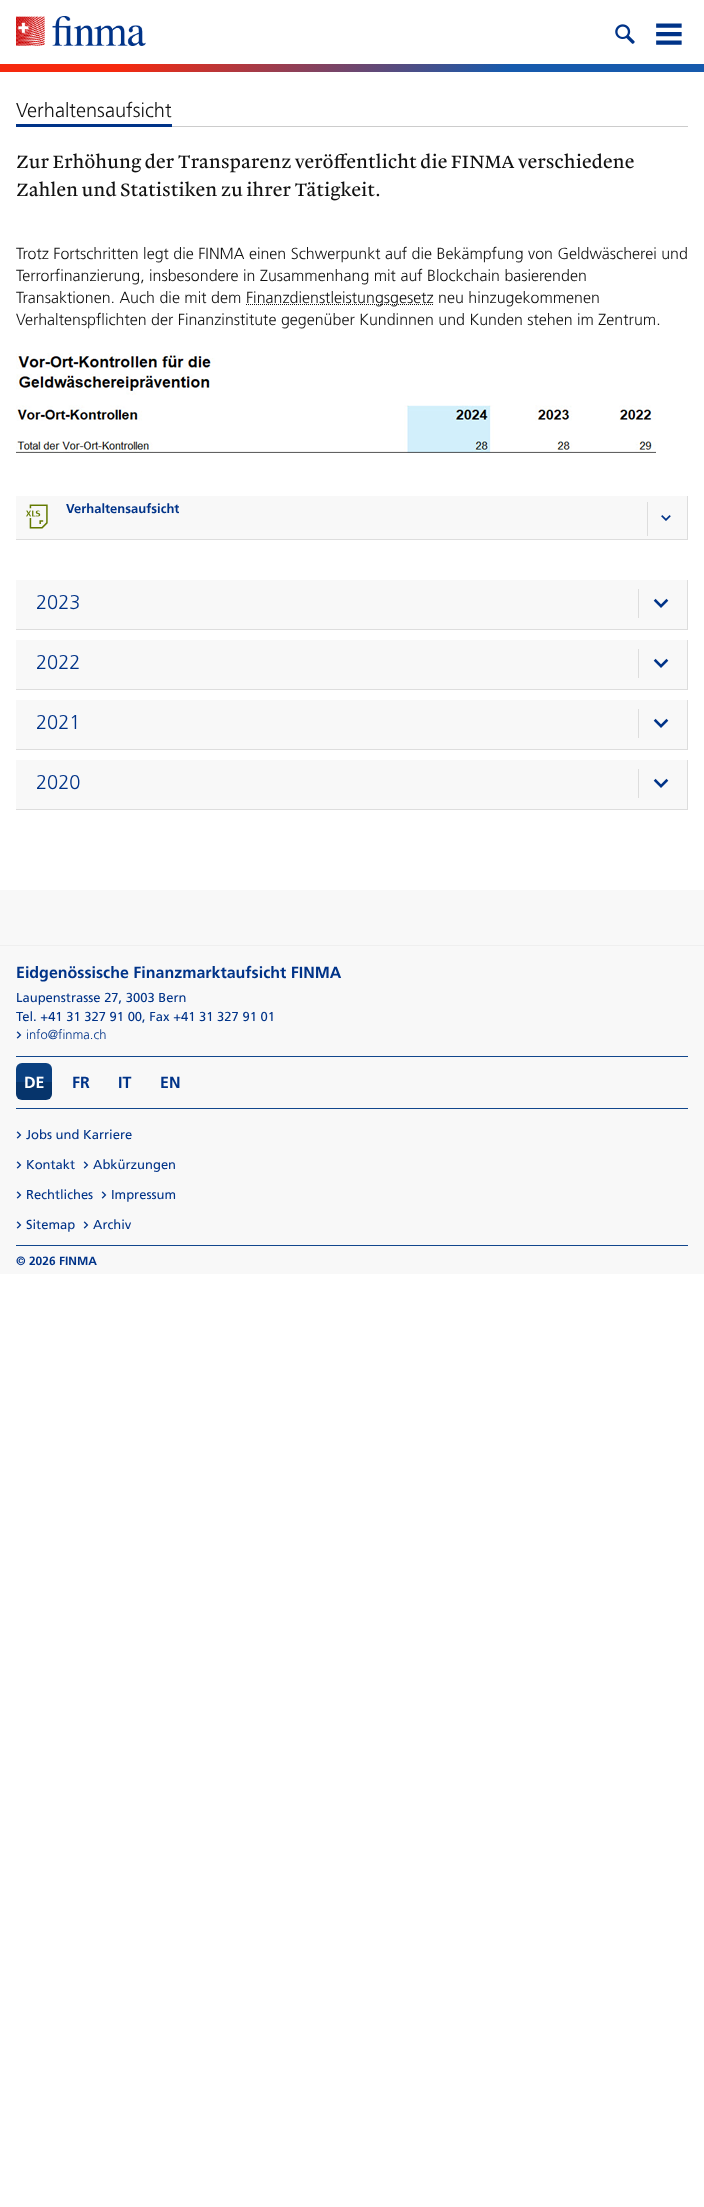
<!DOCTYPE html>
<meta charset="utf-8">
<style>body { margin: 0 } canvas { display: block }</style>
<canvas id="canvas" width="704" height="2207"></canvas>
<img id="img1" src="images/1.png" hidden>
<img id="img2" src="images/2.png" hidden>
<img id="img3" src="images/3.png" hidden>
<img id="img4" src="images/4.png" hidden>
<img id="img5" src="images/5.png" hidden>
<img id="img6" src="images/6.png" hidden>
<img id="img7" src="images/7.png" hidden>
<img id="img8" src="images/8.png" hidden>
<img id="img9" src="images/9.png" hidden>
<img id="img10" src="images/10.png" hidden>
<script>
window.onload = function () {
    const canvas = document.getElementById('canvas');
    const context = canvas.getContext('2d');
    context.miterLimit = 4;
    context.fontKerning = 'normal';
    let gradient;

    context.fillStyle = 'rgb(255, 255, 255)';
    context.fillRect(0, 0, 704, 2207);
    context.fillStyle = 'rgb(248, 248, 248)';
    context.fillRect(0, 890, 704, 384);
    context.drawImage(document.getElementById('img1'), 16, 16, 130, 30);
    context.drawImage(document.getElementById('img2'), 615, 24, 20, 20);
    context.drawImage(document.getElementById('img3'), 656, 23, 26, 22);
    gradient = context.createLinearGradient(174, -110, 530, 246);
    gradient.addColorStop(0, 'rgb(246, 41, 14)');
    gradient.addColorStop(0.17, 'rgb(246, 41, 14)');
    gradient.addColorStop(0.72, 'rgb(22, 90, 173)');
    gradient.addColorStop(1, 'rgb(22, 90, 173)');
    context.fillStyle = gradient;
    context.fillRect(0, 64, 704, 8);
    context.fillStyle = 'rgb(204, 204, 204)';
    context.fillRect(172, 126, 516, 1);
    context.fillStyle = 'rgb(0, 51, 136)';
    context.fillRect(16, 124, 156, 3);
    context.drawImage(document.getElementById('img4'), 17, 153, 617, 20);
    context.drawImage(document.getElementById('img5'), 17, 181, 363, 20);
    context.beginPath();
    context.moveTo(246, 304.5);
    context.lineTo(433, 304.5);
    context.strokeStyle = 'rgb(17, 17, 17)';
    context.setLineDash([1, 1]);
    context.stroke();
    context.drawImage(document.getElementById('img6'), 16, 353, 640, 100);
    context.fillStyle = 'rgb(248, 248, 248)';
    context.fillRect(16, 496, 671, 43);
    context.fillStyle = 'rgb(221, 221, 221)';
    context.fillRect(687, 496, 1, 44);
    context.fillRect(16, 539, 672, 1);
    context.drawImage(document.getElementById('img7'), 26, 504, 22, 25);
    context.fillRect(647, 502, 1, 34);
    context.drawImage(document.getElementById('img8'), 661, 515, 10, 6);
    context.fillStyle = 'rgb(248, 248, 248)';
    context.fillRect(16, 580, 671, 49);
    context.fillStyle = 'rgb(221, 221, 221)';
    context.fillRect(687, 580, 1, 50);
    context.fillRect(16, 629, 672, 1);
    context.fillRect(638, 589, 1, 29);
    context.drawImage(document.getElementById('img9'), 653, 598, 16, 10);
    context.fillStyle = 'rgb(248, 248, 248)';
    context.fillRect(16, 640, 671, 49);
    context.fillStyle = 'rgb(221, 221, 221)';
    context.fillRect(687, 640, 1, 50);
    context.fillRect(16, 689, 672, 1);
    context.fillRect(638, 649, 1, 29);
    context.drawImage(document.getElementById('img9'), 653, 658, 16, 10);
    context.fillStyle = 'rgb(248, 248, 248)';
    context.fillRect(16, 700, 671, 49);
    context.fillStyle = 'rgb(221, 221, 221)';
    context.fillRect(687, 700, 1, 50);
    context.fillRect(16, 749, 672, 1);
    context.fillRect(638, 709, 1, 29);
    context.drawImage(document.getElementById('img9'), 653, 718, 16, 10);
    context.fillStyle = 'rgb(248, 248, 248)';
    context.fillRect(16, 760, 671, 49);
    context.fillStyle = 'rgb(221, 221, 221)';
    context.fillRect(687, 760, 1, 50);
    context.fillRect(16, 809, 672, 1);
    context.fillRect(638, 769, 1, 29);
    context.drawImage(document.getElementById('img9'), 653, 778, 16, 10);
    context.fillStyle = 'rgb(239, 239, 239)';
    context.fillRect(0, 945, 704, 1);
    context.drawImage(document.getElementById('img10'), 16, 1031, 6, 8);
    context.fillStyle = 'rgb(18, 71, 141)';
    context.fillRect(16, 1245, 672, 1);
    context.fillRect(16, 1056, 672, 1);
    context.fillRect(16, 1108, 672, 1);
    context.fillStyle = 'rgb(10, 64, 128)';
    context.beginPath();
    context.roundRect(16, 1063, 36, 19, [6, 6, 0, 0]);
    context.fill();
    context.fillStyle = 'rgb(6, 52, 107)';
    context.beginPath();
    context.roundRect(16, 1082, 36, 18, [0, 0, 6, 6]);
    context.fill();
    context.drawImage(document.getElementById('img10'), 16, 1131, 6, 8);
    context.drawImage(document.getElementById('img10'), 16, 1161, 6, 8);
    context.drawImage(document.getElementById('img10'), 83, 1161, 6, 8);
    context.drawImage(document.getElementById('img10'), 16, 1191, 6, 8);
    context.drawImage(document.getElementById('img10'), 101, 1191, 6, 8);
    context.drawImage(document.getElementById('img10'), 16, 1221, 6, 8);
    context.drawImage(document.getElementById('img10'), 83, 1221, 6, 8);
    context.font = '300 20px "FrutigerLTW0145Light"';
    context.fillStyle = 'rgb(17, 17, 17)';
    context.fillText('Verhaltensaufsicht', 16, 117);
    context.font = '300 16px "FrutigerLTW0145Light"';
    context.fillText('Trotz Fortschritten legt die FINMA einen Schwerpunkt auf die Bekämpfung von Geldwäscherei und', 16, 259);
    context.fillText('Terrorfinanzierung, insbesondere in Zusammenhang mit auf Blockchain basierenden', 16, 281);
    context.fillText('Transaktionen. Auch die mit dem', 16, 303);
    context.fillText('Finanzdienstleistungsgesetz neu hinzugekommenen', 246, 303);
    context.fillText('Verhaltenspflichten der Finanzinstitute gegenüber Kundinnen und Kunden stehen im Zentrum.', 16, 325);
    context.save();
    context.beginPath();
    context.rect(66, 501, 113, 23);
    context.clip();
    context.font = 'bold 13px "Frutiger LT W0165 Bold"';
    context.fillStyle = 'rgb(0, 51, 136)';
    context.fillText('Verhaltensaufsicht', 66, 513);
    context.restore();
    context.font = '300 20px "FrutigerLTW0145Light"';
    context.fillStyle = 'rgb(0, 51, 136)';
    context.fillText('2023', 36, 609);
    context.fillText('2022', 36, 669);
    context.fillText('2021', 36, 729);
    context.fillText('2020', 36, 789);
    context.font = 'bold 16px "Frutiger LT W0165 Bold"';
    context.fillText('Eidgenössische Finanzmarktaufsicht FINMA', 16, 978);
    context.font = '13px "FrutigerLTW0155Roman"';
    context.fillText('Laupenstrasse 27, 3003 Bern', 16, 1002);
    context.fillText('Tel. +41 31 327 91 00, Fax +41 31 327 91 01', 16, 1021);
    context.font = '300 13px "FrutigerLTW0145Light"';
    context.fillText('info@finma.ch', 26, 1039);
    context.font = 'bold 16px "Frutiger LT W0165 Bold"';
    context.fillStyle = 'rgb(255, 255, 255)';
    context.fillText('DE', 24, 1088);
    context.fillStyle = 'rgb(0, 51, 136)';
    context.fillText('FR', 72, 1088);
    context.fillText('IT', 118, 1088);
    context.fillText('EN', 160, 1088);
    context.font = '13px "FrutigerLTW0155Roman"';
    context.fillText('Jobs und Karriere', 26, 1139);
    context.fillText('Kontakt', 26, 1169);
    context.fillText('Abkürzungen', 93, 1169);
    context.fillText('Rechtliches', 26, 1199);
    context.fillText('Impressum', 111, 1199);
    context.fillText('Sitemap', 26, 1229);
    context.fillText('Archiv', 93, 1229);
    context.font = 'bold 12px "Frutiger LT W0165 Bold"';
    context.fillText('© 2026 FINMA', 16, 1265);
};
</script>
